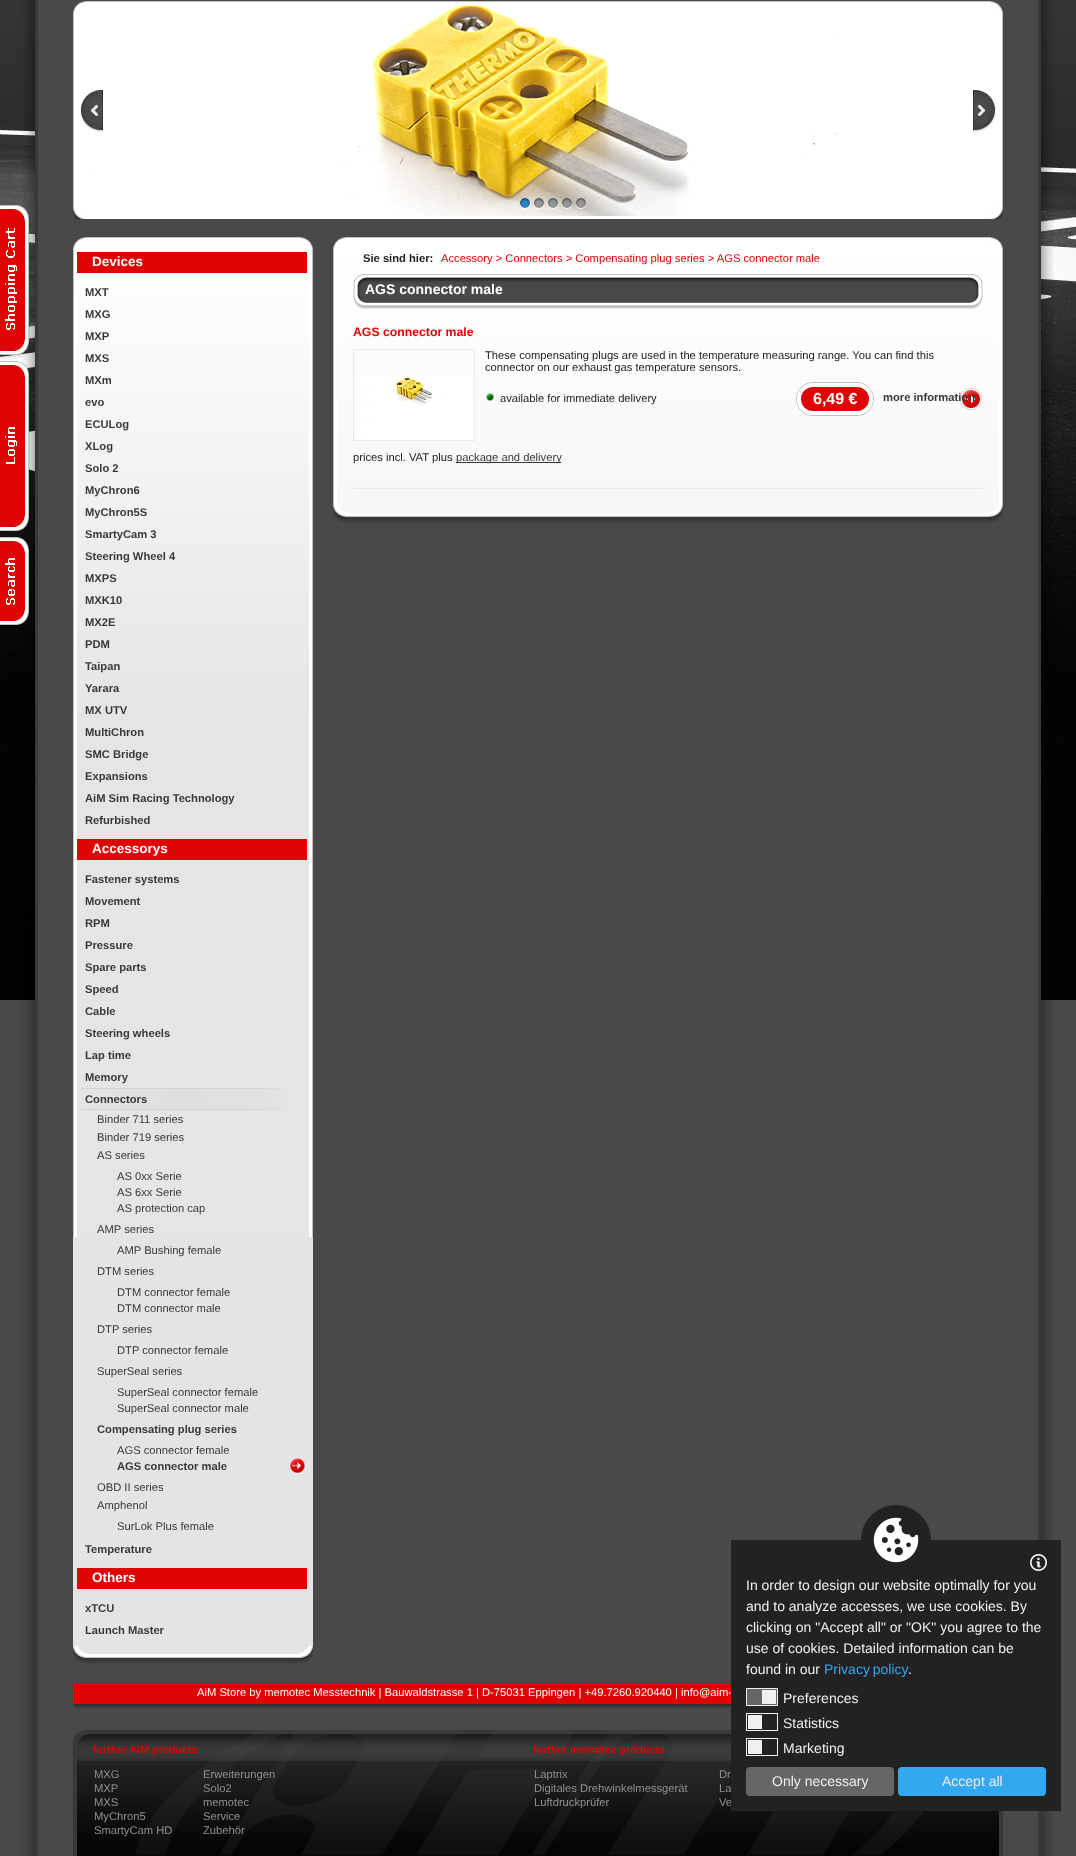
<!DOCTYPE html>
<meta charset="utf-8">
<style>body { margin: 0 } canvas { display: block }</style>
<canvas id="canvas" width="1076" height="1856"></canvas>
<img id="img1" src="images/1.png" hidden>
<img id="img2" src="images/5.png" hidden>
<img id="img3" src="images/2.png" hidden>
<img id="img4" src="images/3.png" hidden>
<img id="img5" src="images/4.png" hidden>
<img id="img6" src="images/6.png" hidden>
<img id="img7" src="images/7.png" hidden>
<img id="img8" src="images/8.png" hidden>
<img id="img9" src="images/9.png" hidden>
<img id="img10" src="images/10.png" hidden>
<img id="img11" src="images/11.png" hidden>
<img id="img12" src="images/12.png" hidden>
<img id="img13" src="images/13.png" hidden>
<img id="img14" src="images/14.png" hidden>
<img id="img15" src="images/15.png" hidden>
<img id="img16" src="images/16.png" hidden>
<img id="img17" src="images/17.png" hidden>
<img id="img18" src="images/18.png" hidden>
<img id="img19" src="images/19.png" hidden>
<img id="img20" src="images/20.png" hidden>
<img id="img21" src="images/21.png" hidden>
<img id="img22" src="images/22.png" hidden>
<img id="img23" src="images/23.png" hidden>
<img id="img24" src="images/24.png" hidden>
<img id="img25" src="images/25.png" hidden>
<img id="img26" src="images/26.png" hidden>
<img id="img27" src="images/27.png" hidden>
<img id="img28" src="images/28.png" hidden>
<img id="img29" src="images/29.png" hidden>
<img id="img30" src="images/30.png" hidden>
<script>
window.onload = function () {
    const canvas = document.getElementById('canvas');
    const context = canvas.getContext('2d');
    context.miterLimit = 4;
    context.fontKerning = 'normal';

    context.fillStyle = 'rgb(73, 73, 73)';
    context.fillRect(0, 0, 1076, 1856);
    context.drawImage(document.getElementById('img1'), 0, 0, 1076, 1000);
    context.drawImage(document.getElementById('img2'), 22, 0, 1032, 1856);
    context.drawImage(document.getElementById('img3'), 0, 205, 31, 155);
    context.drawImage(document.getElementById('img4'), 0, 361, 31, 170);
    context.drawImage(document.getElementById('img5'), 0, 537, 29, 88);
    context.fillRect(38, 0, 1000, 1000);
    context.drawImage(document.getElementById('img6'), 73, 0, 8, 13);
    context.drawImage(document.getElementById('img7'), 73, 1, 930, 218);
    context.drawImage(document.getElementById('img8'), 80, 90, 23, 42);
    context.drawImage(document.getElementById('img9'), 973, 90, 23, 42);
    context.drawImage(document.getElementById('img10'), 520, 198, 10, 11);
    context.drawImage(document.getElementById('img11'), 534, 198, 10, 11);
    context.drawImage(document.getElementById('img12'), 548, 198, 10, 11);
    context.drawImage(document.getElementById('img13'), 562, 198, 10, 11);
    context.drawImage(document.getElementById('img14'), 576, 198, 10, 11);
    context.fillStyle = 'rgb(228, 228, 228)';
    context.fillRect(73, 1237, 240, 417);
    context.drawImage(document.getElementById('img15'), 73, 241, 240, 996);
    context.drawImage(document.getElementById('img16'), 73, 237, 240, 12);
    context.fillStyle = 'rgb(223, 3, 3)';
    context.fillRect(77, 252, 230, 21);
    context.fillRect(77, 839, 230, 21);
    context.drawImage(document.getElementById('img17'), 81, 1088, 207, 22);
    context.drawImage(document.getElementById('img18'), 289, 1458, 18, 16);
    context.fillRect(77, 1568, 230, 21);
    context.drawImage(document.getElementById('img19'), 73, 1646, 240, 18);
    context.drawImage(document.getElementById('img20'), 333, 241, 670, 272);
    context.drawImage(document.getElementById('img21'), 333, 237, 670, 12);
    context.drawImage(document.getElementById('img22'), 353, 274, 630, 35);
    context.strokeStyle = 'rgb(234, 234, 234)';
    context.strokeRect(353.5, 349.5, 121, 91);
    context.drawImage(document.getElementById('img23'), 354, 375, 120, 65);
    context.drawImage(document.getElementById('img24'), 486, 393, 8, 8);
    context.beginPath();
    context.roundRect(796.5, 382.5, 77, 33, 16.5);
    context.strokeStyle = 'rgb(193, 193, 193)';
    context.stroke();
    context.beginPath();
    context.roundRect(799, 385, 72, 28, 14);
    context.fill();
    context.strokeStyle = 'rgb(255, 255, 255)';
    context.lineWidth = 4;
    context.stroke();
    context.drawImage(document.getElementById('img25'), 960, 388, 22, 22);
    context.fillStyle = 'rgb(57, 57, 57)';
    context.fillRect(456, 462, 105, 1);
    context.fillStyle = 'rgb(228, 233, 241)';
    context.fillRect(353, 488, 630, 1);
    context.drawImage(document.getElementById('img26'), 333, 505, 670, 18);
    context.drawImage(document.getElementById('img27'), 73, 1684, 658, 25);
    context.drawImage(document.getElementById('img28'), 73, 1730, 930, 126);
    context.font = 'bold 13.5px Liberation Sans';
    context.fillStyle = 'rgb(255, 255, 255)';
    context.fillText('Devices', 92, 266);
    context.font = 'bold 11.2px Liberation Sans';
    context.fillStyle = 'rgb(57, 57, 57)';
    context.fillText('MXT', 85, 296);
    context.fillText('MXG', 85, 318);
    context.fillText('MXP', 85, 340);
    context.fillText('MXS', 85, 362);
    context.fillText('MXm', 85, 384);
    context.fillText('evo', 85, 406);
    context.fillText('ECULog', 85, 428);
    context.fillText('XLog', 85, 450);
    context.fillText('Solo 2', 85, 472);
    context.fillText('MyChron6', 85, 494);
    context.fillText('MyChron5S', 85, 516);
    context.fillText('SmartyCam 3', 85, 538);
    context.fillText('Steering Wheel 4', 85, 560);
    context.fillText('MXPS', 85, 582);
    context.fillText('MXK10', 85, 604);
    context.fillText('MX2E', 85, 626);
    context.fillText('PDM', 85, 648);
    context.fillText('Taipan', 85, 670);
    context.fillText('Yarara', 85, 692);
    context.fillText('MX UTV', 85, 714);
    context.fillText('MultiChron', 85, 736);
    context.fillText('SMC Bridge', 85, 758);
    context.fillText('Expansions', 85, 780);
    context.fillText('AiM Sim Racing Technology', 85, 802);
    context.fillText('Refurbished', 85, 824);
    context.font = 'bold 13.5px Liberation Sans';
    context.fillStyle = 'rgb(255, 255, 255)';
    context.fillText('Accessorys', 92, 853);
    context.font = 'bold 11.2px Liberation Sans';
    context.fillStyle = 'rgb(57, 57, 57)';
    context.fillText('Fastener systems', 85, 883);
    context.fillText('Movement', 85, 905);
    context.fillText('RPM', 85, 927);
    context.fillText('Pressure', 85, 949);
    context.fillText('Spare parts', 85, 971);
    context.fillText('Speed', 85, 993);
    context.fillText('Cable', 85, 1015);
    context.fillText('Steering wheels', 85, 1037);
    context.fillText('Lap time', 85, 1059);
    context.fillText('Memory', 85, 1081);
    context.fillText('Connectors', 85, 1103);
    context.font = '11.2px Liberation Sans';
    context.fillText('Binder 711 series', 97, 1123);
    context.fillText('Binder 719 series', 97, 1141);
    context.fillText('AS series', 97, 1159);
    context.fillText('AS 0xx Serie', 117, 1180);
    context.fillText('AS 6xx Serie', 117, 1196);
    context.fillText('AS protection cap', 117, 1212);
    context.fillText('AMP series', 97, 1233);
    context.fillText('AMP Bushing female', 117, 1254);
    context.fillText('DTM series', 97, 1275);
    context.fillText('DTM connector female', 117, 1296);
    context.fillText('DTM connector male', 117, 1312);
    context.fillText('DTP series', 97, 1333);
    context.fillText('DTP connector female', 117, 1354);
    context.fillText('SuperSeal series', 97, 1375);
    context.fillText('SuperSeal connector female', 117, 1396);
    context.fillText('SuperSeal connector male', 117, 1412);
    context.font = 'bold 11.2px Liberation Sans';
    context.fillText('Compensating plug series', 97, 1433);
    context.font = '11.2px Liberation Sans';
    context.fillText('AGS connector female', 117, 1454);
    context.font = 'bold 11.2px Liberation Sans';
    context.fillText('AGS connector male', 117, 1470);
    context.font = '11.2px Liberation Sans';
    context.fillText('OBD II series', 97, 1491);
    context.fillText('Amphenol', 97, 1509);
    context.fillText('SurLok Plus female', 117, 1530);
    context.font = 'bold 11.2px Liberation Sans';
    context.fillText('Temperature', 85, 1553);
    context.font = 'bold 13.5px Liberation Sans';
    context.fillStyle = 'rgb(255, 255, 255)';
    context.fillText('Others', 92, 1582);
    context.font = 'bold 11.2px Liberation Sans';
    context.fillStyle = 'rgb(57, 57, 57)';
    context.fillText('xTCU', 85, 1612);
    context.fillText('Launch Master', 85, 1634);
    context.fillStyle = 'rgb(34, 34, 34)';
    context.fillText('Sie sind hier:', 363, 262);
    context.font = '11.2px Liberation Sans';
    context.fillStyle = 'rgb(223, 3, 3)';
    context.fillText('Accessory > Connectors > Compensating plug series > AGS connector male', 441, 262);
    context.font = 'bold 14px Liberation Sans';
    context.fillStyle = 'rgb(255, 255, 255)';
    context.fillText('AGS connector male', 365, 294);
    context.font = 'bold 12.25px Liberation Sans';
    context.fillStyle = 'rgb(223, 3, 3)';
    context.fillText('AGS connector male', 353, 336);
    context.font = '11.2px Liberation Sans';
    context.fillStyle = 'rgb(34, 34, 34)';
    context.fillText('These compensating plugs are used in the temperature measuring range. You can find this', 485, 359);
    context.fillText('connector on our exhaust gas temperature sensors.', 485, 371);
    context.fillText('available for immediate delivery', 500, 402);
    context.font = 'bold 16px Liberation Sans';
    context.fillStyle = 'rgb(255, 255, 255)';
    context.fillText('6,49 €', 813, 404);
    context.font = 'bold 11.2px Liberation Sans';
    context.fillStyle = 'rgb(57, 57, 57)';
    context.fillText('more information', 883, 401);
    context.font = '11.2px Liberation Sans';
    context.fillStyle = 'rgb(34, 34, 34)';
    context.fillText('prices incl. VAT plus', 353, 461);
    context.fillStyle = 'rgb(57, 57, 57)';
    context.fillText('package and delivery', 456, 461);
    context.fillStyle = 'rgb(255, 255, 255)';
    context.fillText('AiM Store by memotec Messtechnik | Bauwaldstrasse 1 | D-75031 Eppingen | +49.7260.920440 | info@aim-', 197, 1696);
    context.font = 'bold 10.6px Liberation Sans';
    context.fillStyle = 'rgb(223, 3, 3)';
    context.fillText('further AIM products', 93, 1753);
    context.font = '11.2px Liberation Sans';
    context.fillStyle = 'rgb(145, 145, 145)';
    context.fillText('MXG', 94, 1778);
    context.fillText('Erweiterungen', 203, 1778);
    context.fillText('MXP', 94, 1792);
    context.fillText('Solo2', 203, 1792);
    context.fillText('MXS', 94, 1806);
    context.fillText('memotec', 203, 1806);
    context.fillText('MyChron5', 94, 1820);
    context.fillText('Service', 203, 1820);
    context.fillText('SmartyCam HD', 94, 1834);
    context.fillText('Zubehör', 203, 1834);
    context.font = 'bold 10.6px Liberation Sans';
    context.fillStyle = 'rgb(223, 3, 3)';
    context.fillText('further memotec products', 533, 1753);
    context.font = '11.2px Liberation Sans';
    context.fillStyle = 'rgb(145, 145, 145)';
    context.fillText('Laptrix', 534, 1778);
    context.fillText('Dr', 719, 1778);
    context.fillText('Digitales Drehwinkelmessgerät', 534, 1792);
    context.fillText('La', 719, 1792);
    context.fillText('Luftdruckprüfer', 534, 1806);
    context.fillText('Ve', 719, 1806);
    context.fillStyle = 'rgb(34, 34, 34)';
    context.fillRect(731, 1540, 330, 271);
    context.drawImage(document.getElementById('img29'), 861, 1505, 70, 58);
    context.drawImage(document.getElementById('img30'), 1030, 1554, 17, 17);
    context.font = '14px Liberation Sans';
    context.fillStyle = 'rgb(239, 239, 239)';
    context.fillText('In order to design our website optimally for you', 746, 1590);
    context.fillText('and to analyze accesses, we use cookies. By', 746, 1611);
    context.fillText('clicking on "Accept all" or "OK" you agree to the', 746, 1632);
    context.fillText('use of cookies. Detailed information can be', 746, 1653);
    context.fillText('found in our', 746, 1674);
    context.wordSpacing = '-1px';
    context.fillStyle = 'rgb(49, 168, 240)';
    context.fillText('Privacy policy', 824, 1674);
    context.wordSpacing = '0px';
    context.fillStyle = 'rgb(239, 239, 239)';
    context.fillText('.', 908, 1674);
    context.fillStyle = 'rgb(102, 102, 102)';
    context.beginPath();
    context.rect(746.5, 1688.5, 31, 17);
    context.fill();
    context.strokeStyle = 'rgb(239, 239, 239)';
    context.lineWidth = 1;
    context.stroke();
    context.fillStyle = 'rgb(239, 239, 239)';
    context.fillRect(762, 1690, 14, 14);
    context.fillText('Preferences', 783, 1703);
    context.strokeRect(746.5, 1713.5, 31, 17);
    context.fillRect(748, 1715, 14, 14);
    context.fillText('Statistics', 783, 1728);
    context.strokeRect(746.5, 1738.5, 31, 17);
    context.fillRect(748, 1740, 14, 14);
    context.fillText('Marketing', 783, 1753);
    context.fillStyle = 'rgb(102, 102, 102)';
    context.beginPath();
    context.roundRect(746, 1767, 148, 29, 4);
    context.fill();
    context.fillStyle = 'rgb(239, 239, 239)';
    context.fillText('Only necessary', 772, 1786);
    context.fillStyle = 'rgb(49, 168, 240)';
    context.beginPath();
    context.roundRect(898, 1767, 148, 29, 4);
    context.fill();
    context.fillStyle = 'rgb(239, 239, 239)';
    context.fillText('Accept all', 942, 1786);
};
</script>
